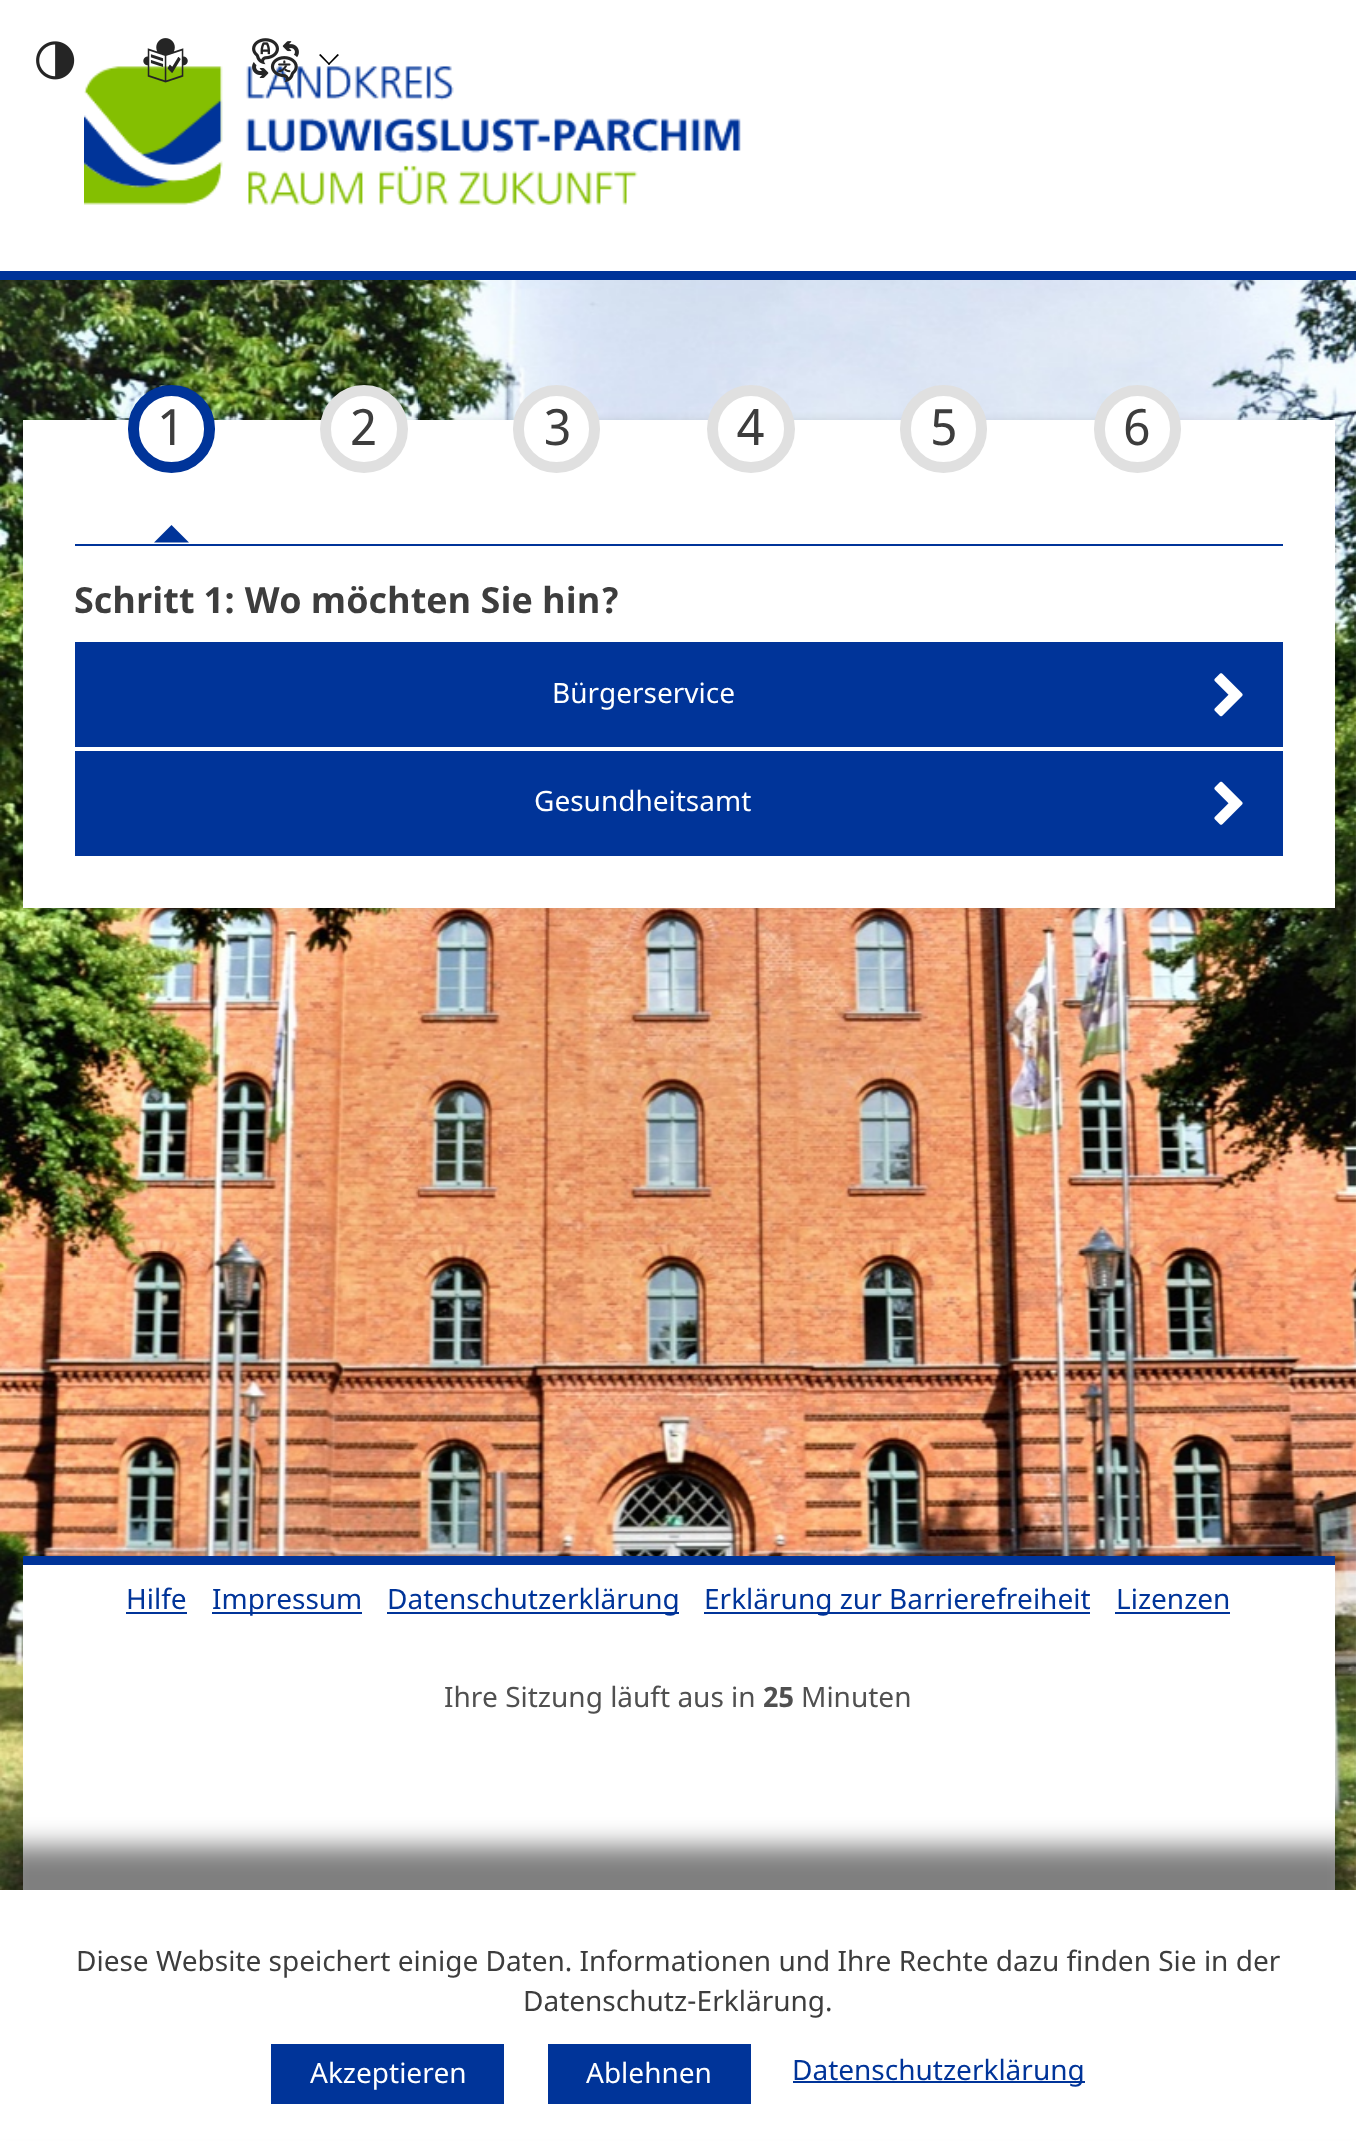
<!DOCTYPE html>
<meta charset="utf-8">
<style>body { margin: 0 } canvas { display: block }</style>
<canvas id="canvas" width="1356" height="2156"></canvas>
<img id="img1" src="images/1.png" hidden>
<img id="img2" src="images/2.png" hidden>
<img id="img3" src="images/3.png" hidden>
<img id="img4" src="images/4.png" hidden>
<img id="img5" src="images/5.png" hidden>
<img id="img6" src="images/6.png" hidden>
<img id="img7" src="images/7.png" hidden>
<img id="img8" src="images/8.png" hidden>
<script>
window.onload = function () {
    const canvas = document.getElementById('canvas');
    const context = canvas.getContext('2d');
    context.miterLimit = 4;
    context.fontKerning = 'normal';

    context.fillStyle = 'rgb(255, 255, 255)';
    context.fillRect(0, 0, 1356, 2156);
    context.drawImage(document.getElementById('img1'), 1355, 280, 1, 1610);
    context.drawImage(document.getElementById('img2'), 0, 280, 1356, 1610);
    context.drawImage(document.getElementById('img3'), 84, 66, 657, 139);
    context.fillStyle = 'rgb(0, 52, 153)';
    context.fillRect(0, 271, 1356, 9);
    context.drawImage(document.getElementById('img4'), 36, 41, 39, 39);
    context.drawImage(document.getElementById('img5'), 143, 38, 45, 45);
    context.drawImage(document.getElementById('img6'), 252, 38, 47, 44);
    context.fillStyle = 'rgb(0, 0, 0)';
    context.beginPath();
    context.moveTo(337.5, 54);
    context.lineTo(339, 55);
    context.lineTo(329, 65);
    context.lineTo(328, 64);
    context.closePath();
    context.fill();
    context.beginPath();
    context.moveTo(320.5, 54);
    context.lineTo(330, 64);
    context.lineTo(329, 65);
    context.lineTo(319, 55);
    context.closePath();
    context.fill();
    context.fillStyle = 'rgba(0, 0, 0, 0.1)';
    context.filter = 'blur(4.5px)';
    context.beginPath();
    context.rect(23, 420, 1312, 488);
    context.fill();
    context.filter = 'none';
    context.fillStyle = 'rgb(255, 255, 255)';
    context.fillRect(23, 420, 1312, 488);
    context.fillStyle = 'rgb(0, 52, 153)';
    context.fillRect(75, 544, 1208, 2);
    context.fillStyle = 'rgb(255, 255, 255)';
    context.beginPath();
    context.roundRect(133.5, 390.5, 76, 77, 38);
    context.fill();
    context.strokeStyle = 'rgb(0, 52, 153)';
    context.lineWidth = 11;
    context.stroke();
    context.fillStyle = 'rgb(0, 52, 153)';
    context.beginPath();
    context.moveTo(189, 542.5);
    context.lineTo(154, 542.5);
    context.lineTo(171.5, 525);
    context.closePath();
    context.fill();
    context.fillStyle = 'rgb(255, 255, 255)';
    context.beginPath();
    context.arc(364, 429, 38.5, 0, 2 * Math.PI);
    context.fill();
    context.strokeStyle = 'rgb(224, 224, 224)';
    context.stroke();
    context.beginPath();
    context.roundRect(518.5, 390.5, 76, 77, 38);
    context.fill();
    context.stroke();
    context.beginPath();
    context.arc(751, 429, 38.5, 0, 2 * Math.PI);
    context.fill();
    context.stroke();
    context.beginPath();
    context.roundRect(905.5, 390.5, 76, 77, 38);
    context.fill();
    context.stroke();
    context.beginPath();
    context.roundRect(1099.5, 390.5, 76, 77, 38);
    context.fill();
    context.stroke();
    context.fillStyle = 'rgb(0, 52, 153)';
    context.fillRect(75, 642, 1208, 105);
    context.drawImage(document.getElementById('img7'), 1214, 673, 29, 44);
    context.fillRect(75, 751, 1208, 105);
    context.drawImage(document.getElementById('img8'), 1214, 781, 29, 44);
    context.fillStyle = 'rgb(255, 255, 255)';
    context.fillRect(23, 1565, 1312, 325);
    context.fillStyle = 'rgb(0, 52, 153)';
    context.fillRect(23, 1556, 1312, 9);
    context.fillRect(126, 1612, 61, 2);
    context.fillRect(212, 1612, 150, 2);
    context.fillRect(387, 1612, 292, 2);
    context.fillRect(704, 1612, 386, 2);
    context.fillRect(1115, 1612, 115, 2);
    context.fillStyle = 'rgba(0, 0, 0, 0.5)';
    context.filter = 'blur(13px)';
    context.beginPath();
    context.rect(0, 1846, 1356, 266);
    context.fill();
    context.filter = 'none';
    context.fillStyle = 'rgb(255, 255, 255)';
    context.fillRect(0, 1890, 1356, 249);
    context.fillStyle = 'rgb(0, 52, 153)';
    context.fillRect(271, 2044, 233, 60);
    context.fillRect(548, 2044, 203, 60);
    context.fillRect(793, 2081, 292, 2);
    context.font = '50px Noto Sans';
    context.fillStyle = 'rgb(61, 61, 61)';
    context.fillText('1', 157, 445);
    context.fillText('2', 350, 445);
    context.fillText('3', 544, 445);
    context.fillText('4', 737, 445);
    context.fillText('5', 930, 445);
    context.fillText('6', 1123, 445);
    context.font = 'bold 36px Noto Sans';
    context.fillText('Schritt 1: Wo möchten Sie hin?', 74, 613);
    context.font = '28px Noto Sans';
    context.fillStyle = 'rgb(255, 255, 255)';
    context.fillText('Bürgerservice', 552, 703);
    context.fillText('Gesundheitsamt', 534, 811);
    context.fillStyle = 'rgb(0, 52, 153)';
    context.fillText('Hilfe', 126, 1609);
    context.fillText('Impressum', 212, 1609);
    context.fillText('Datenschutzerklärung', 387, 1609);
    context.fillText('Erklärung zur Barrierefreiheit', 704, 1609);
    context.fillText('Lizenzen', 1116, 1609);
    context.fillStyle = 'rgb(80, 80, 80)';
    context.fillText('Ihre Sitzung läuft aus in', 444, 1707);
    context.font = 'bold 28px Noto Sans';
    context.fillText('25', 763, 1707);
    context.font = '28px Noto Sans';
    context.fillText('Minuten', 801, 1707);
    context.fillStyle = 'rgb(61, 61, 61)';
    context.fillText('Diese Website speichert einige Daten. Informationen und Ihre Rechte dazu finden Sie in der', 76, 1971);
    context.fillText('Datenschutz-Erklärung.', 523, 2011);
    context.fillStyle = 'rgb(255, 255, 255)';
    context.fillText('Akzeptieren', 310, 2083);
    context.fillText('Ablehnen', 586, 2083);
    context.fillStyle = 'rgb(0, 52, 153)';
    context.fillText('Datenschutzerklärung', 792, 2080);
};
</script>
